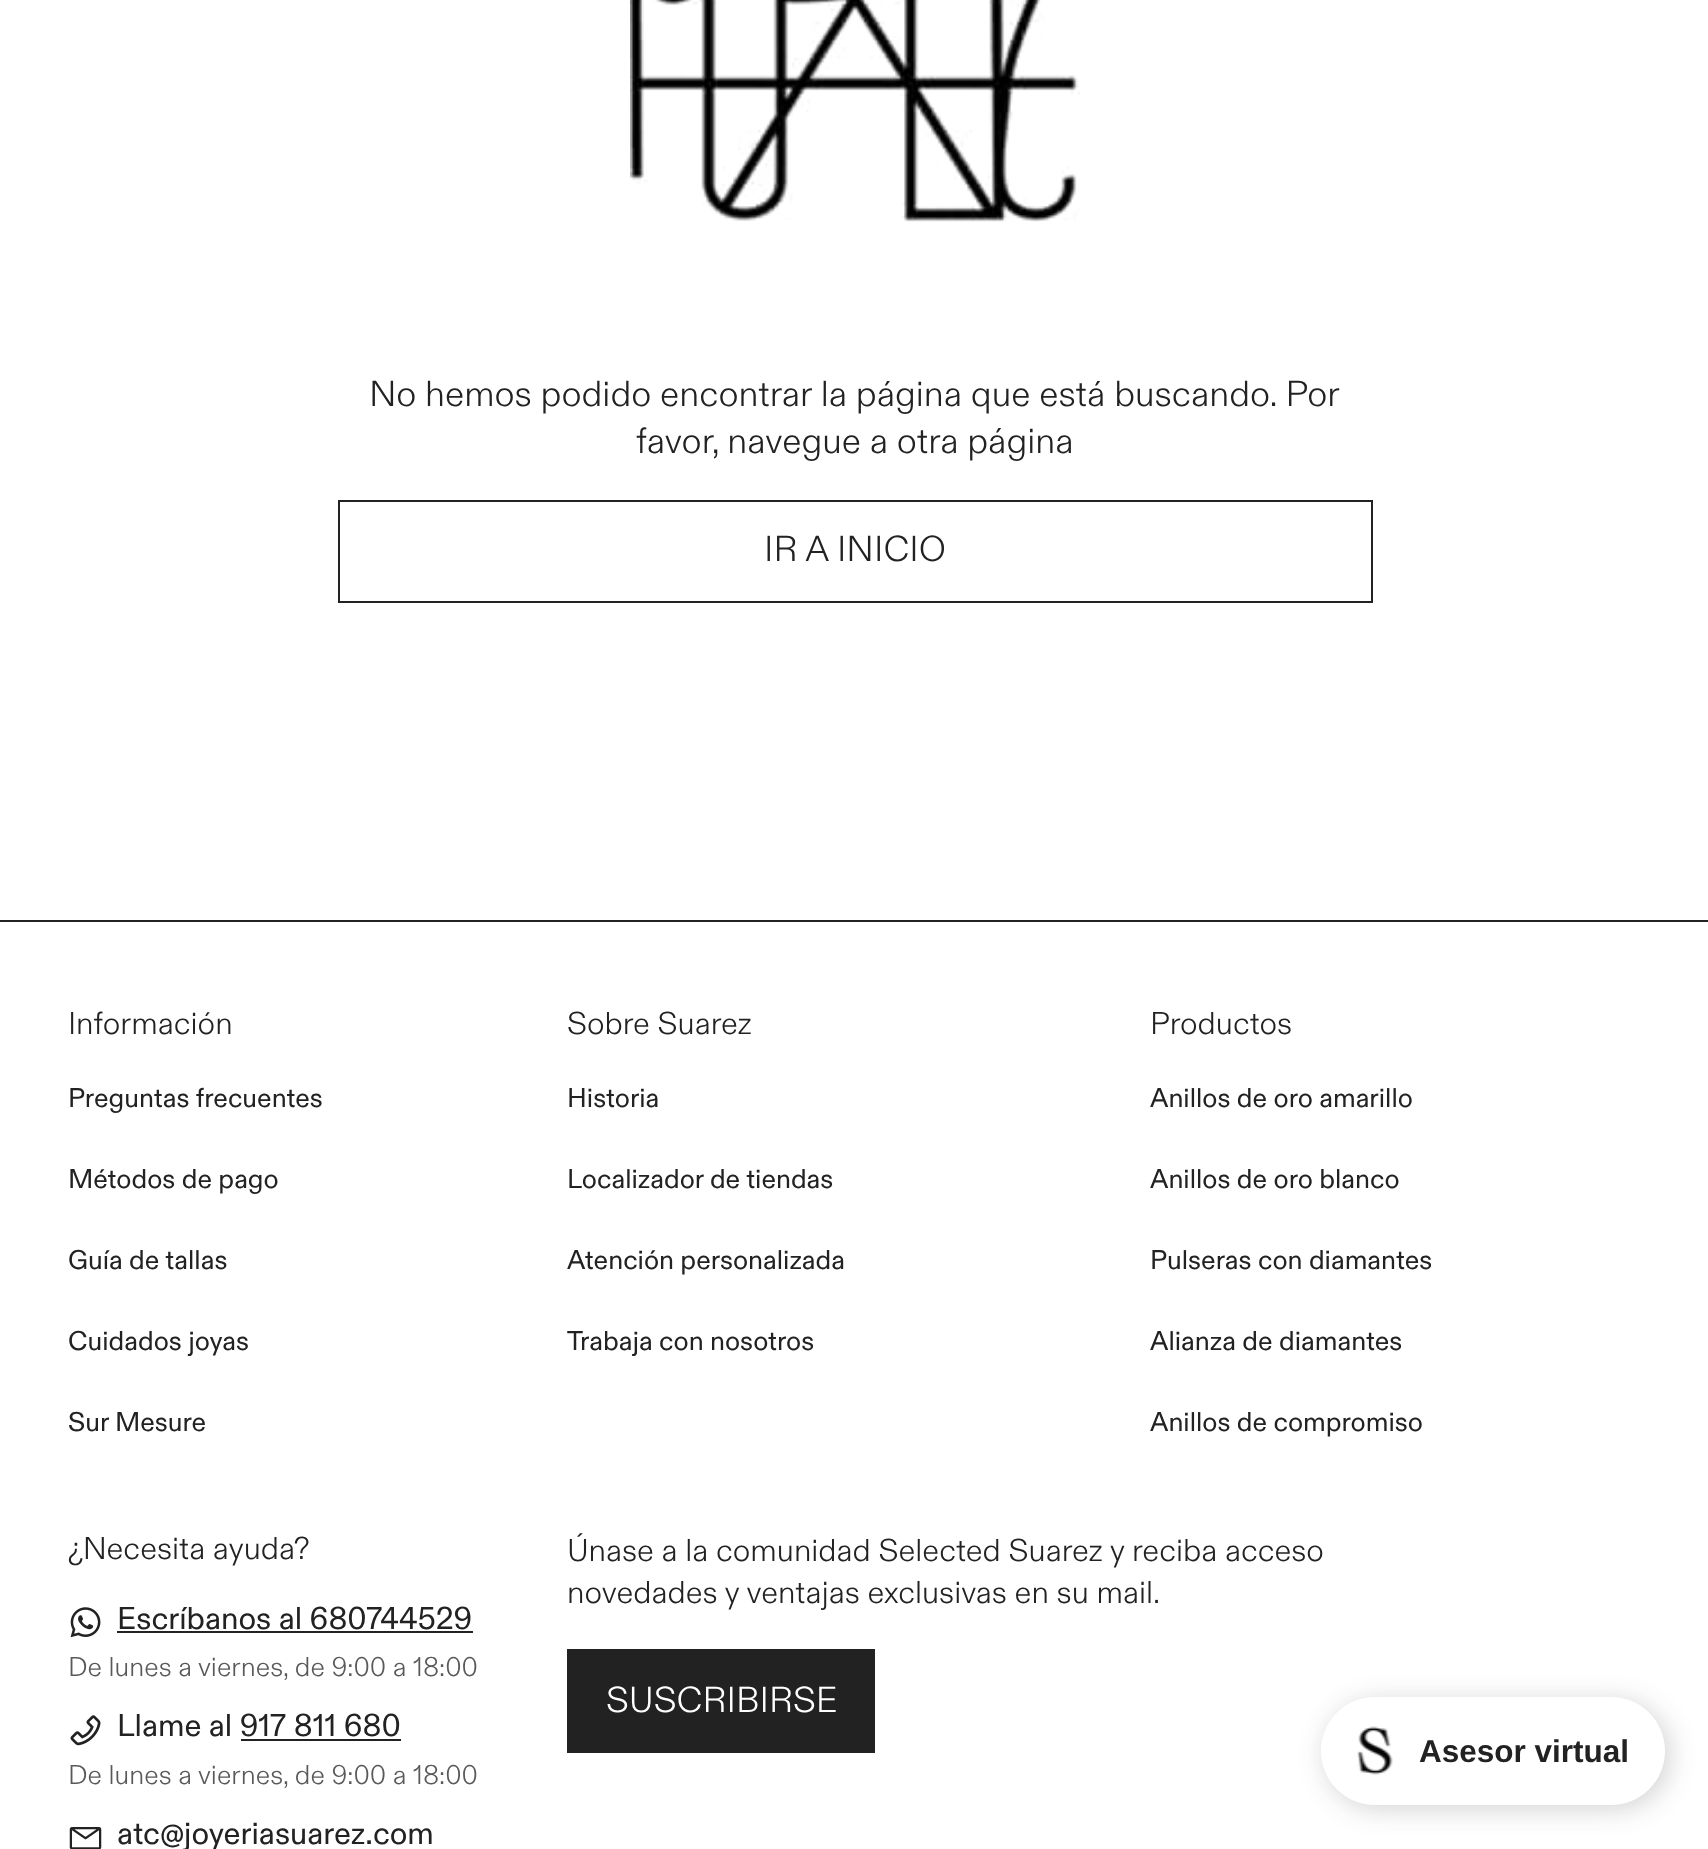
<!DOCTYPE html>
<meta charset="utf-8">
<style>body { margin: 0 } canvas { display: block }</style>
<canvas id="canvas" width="1708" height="1849"></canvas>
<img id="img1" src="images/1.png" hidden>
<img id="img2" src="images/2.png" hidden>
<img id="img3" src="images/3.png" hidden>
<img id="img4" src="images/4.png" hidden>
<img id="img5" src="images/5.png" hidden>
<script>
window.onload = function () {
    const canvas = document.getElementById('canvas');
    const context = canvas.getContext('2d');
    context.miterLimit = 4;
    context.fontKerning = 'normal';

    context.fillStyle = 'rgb(255, 255, 255)';
    context.fillRect(0, 0, 1708, 1849);
    context.drawImage(document.getElementById('img1'), 630, 0, 450, 222);
    context.strokeStyle = 'rgb(34, 34, 34)';
    context.lineWidth = 2;
    context.strokeRect(339, 501, 1033, 101);
    context.fillStyle = 'rgb(34, 34, 34)';
    context.fillRect(0, 920, 1708, 2);
    context.drawImage(document.getElementById('img2'), 70, 1607, 31, 31);
    context.fillRect(117, 1631, 356, 2);
    context.drawImage(document.getElementById('img3'), 70, 1715, 31, 31);
    context.fillRect(241, 1739, 160, 2);
    context.drawImage(document.getElementById('img4'), 69, 1827, 33, 22);
    context.fillRect(567, 1649, 308, 104);
    context.fillStyle = 'rgba(34, 34, 34, 0.2)';
    context.filter = 'blur(13.5px)';
    context.beginPath();
    context.roundRect(1325, 1701, 345, 108, 54);
    context.fill();
    context.filter = 'none';
    context.fillStyle = 'rgb(255, 255, 255)';
    context.beginPath();
    context.roundRect(1321, 1697, 344, 108, 54);
    context.fill();
    context.drawImage(document.getElementById('img5'), 1357, 1726, 36, 49);
    context.font = '300 36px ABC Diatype';
    context.fillStyle = 'rgb(34, 34, 34)';
    context.fillText('No hemos podido encontrar la página que está buscando. Por', 369, 406);
    context.fillText('favor, navegue a otra página', 636, 453);
    context.fillText('IR A INICIO', 764, 561);
    context.font = '300 31.5px ABC Diatype';
    context.fillText('Información', 68, 1034);
    context.font = '27px ABC Diatype';
    context.fillText('Preguntas frecuentes', 68, 1107);
    context.fillText('Métodos de pago', 68, 1188);
    context.fillText('Guía de tallas', 68, 1269);
    context.fillText('Cuidados joyas', 68, 1350);
    context.fillText('Sur Mesure', 68, 1431);
    context.font = '300 31.5px ABC Diatype';
    context.fillText('Sobre Suarez', 567, 1034);
    context.font = '27px ABC Diatype';
    context.fillText('Historia', 567, 1107);
    context.fillText('Localizador de tiendas', 567, 1188);
    context.fillText('Atención personalizada', 567, 1269);
    context.fillText('Trabaja con nosotros', 567, 1350);
    context.font = '300 31.5px ABC Diatype';
    context.fillText('Productos', 1150, 1034);
    context.font = '27px ABC Diatype';
    context.fillText('Anillos de oro amarillo', 1150, 1107);
    context.fillText('Anillos de oro blanco', 1150, 1188);
    context.fillText('Pulseras con diamantes', 1150, 1269);
    context.fillText('Alianza de diamantes', 1150, 1350);
    context.fillText('Anillos de compromiso', 1150, 1431);
    context.font = '300 31.5px ABC Diatype';
    context.fillText('¿Necesita ayuda?', 68, 1559);
    context.font = '31.5px ABC Diatype';
    context.fillText('Escríbanos al 680744529', 117, 1629);
    context.font = '300 27px ABC Diatype';
    context.fillStyle = 'rgb(89, 89, 89)';
    context.fillText('De lunes a viernes, de 9:00 a 18:00', 68, 1676);
    context.font = '31.5px ABC Diatype';
    context.fillStyle = 'rgb(34, 34, 34)';
    context.fillText('Llame al 917 811 680', 117, 1736);
    context.font = '300 27px ABC Diatype';
    context.fillStyle = 'rgb(89, 89, 89)';
    context.fillText('De lunes a viernes, de 9:00 a 18:00', 68, 1784);
    context.font = '31.5px ABC Diatype';
    context.fillStyle = 'rgb(34, 34, 34)';
    context.fillText('atc@joyeriasuarez.com', 117, 1844);
    context.font = '300 31.5px ABC Diatype';
    context.fillText('Únase a la comunidad Selected Suarez y reciba acceso', 567, 1561);
    context.fillText('novedades y ventajas exclusivas en su mail.', 567, 1603);
    context.font = '300 36px ABC Diatype';
    context.fillStyle = 'rgb(255, 255, 255)';
    context.fillText('SUSCRIBIRSE', 606, 1712);
    context.font = 'bold 31.5px Liberation Sans';
    context.fillStyle = 'rgb(34, 34, 34)';
    context.fillText('Asesor virtual', 1419, 1762);
};
</script>
